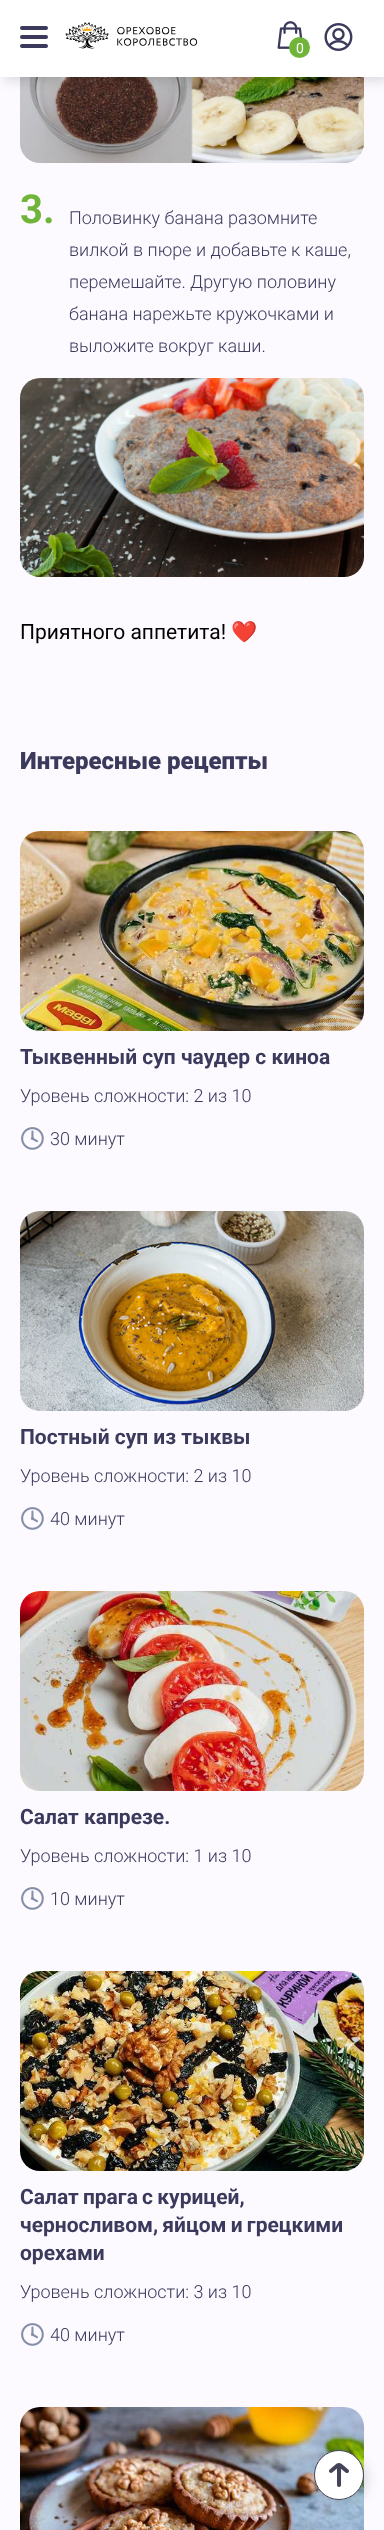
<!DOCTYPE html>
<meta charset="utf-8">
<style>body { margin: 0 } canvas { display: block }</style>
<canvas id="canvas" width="384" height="2530"></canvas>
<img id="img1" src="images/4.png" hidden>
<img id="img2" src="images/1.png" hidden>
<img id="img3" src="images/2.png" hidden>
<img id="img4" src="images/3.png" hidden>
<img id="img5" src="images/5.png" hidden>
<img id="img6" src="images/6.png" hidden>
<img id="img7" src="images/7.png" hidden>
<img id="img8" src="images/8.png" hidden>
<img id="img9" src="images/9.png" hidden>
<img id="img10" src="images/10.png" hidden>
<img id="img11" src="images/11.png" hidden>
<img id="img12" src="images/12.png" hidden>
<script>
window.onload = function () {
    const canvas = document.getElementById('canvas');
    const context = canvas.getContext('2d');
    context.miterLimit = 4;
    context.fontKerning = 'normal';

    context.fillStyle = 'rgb(252, 250, 255)';
    context.fillRect(0, 0, 384, 2530);
    context.drawImage(document.getElementById('img1'), 20, 77, 344, 86);
    context.fillStyle = 'rgba(0, 0, 0, 0.12)';
    context.filter = 'blur(6px)';
    context.beginPath();
    context.rect(4, 4, 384, 77);
    context.fill();
    context.filter = 'none';
    context.fillStyle = 'rgb(255, 255, 255)';
    context.fillRect(0, 0, 384, 77);
    context.fillStyle = 'rgb(59, 58, 92)';
    context.beginPath();
    context.roundRect(20, 26, 28, 4, 2);
    context.fill();
    context.beginPath();
    context.roundRect(20, 35, 28, 4, 2);
    context.fill();
    context.beginPath();
    context.roundRect(20, 44, 28, 4, 2);
    context.fill();
    context.drawImage(document.getElementById('img2'), 65, 22, 133, 27);
    context.drawImage(document.getElementById('img3'), 277, 21, 26, 28);
    context.fillStyle = 'rgb(112, 181, 57)';
    context.beginPath();
    context.arc(299.5, 47.5, 10.5, 0, 2 * Math.PI);
    context.fill();
    context.drawImage(document.getElementById('img4'), 324, 23, 29, 28);
    context.drawImage(document.getElementById('img5'), 20, 378, 344, 199);
    context.drawImage(document.getElementById('img6'), 20, 831, 344, 200);
    context.drawImage(document.getElementById('img7'), 21, 1127, 23, 23);
    context.drawImage(document.getElementById('img8'), 20, 1211, 344, 200);
    context.drawImage(document.getElementById('img7'), 21, 1507, 23, 23);
    context.drawImage(document.getElementById('img9'), 20, 1591, 344, 200);
    context.drawImage(document.getElementById('img7'), 21, 1887, 23, 23);
    context.drawImage(document.getElementById('img10'), 20, 1971, 344, 200);
    context.drawImage(document.getElementById('img7'), 21, 2323, 23, 23);
    context.drawImage(document.getElementById('img11'), 20, 2407, 344, 123);
    context.fillStyle = 'rgba(0, 0, 0, 0.12)';
    context.filter = 'blur(6px)';
    context.beginPath();
    context.roundRect(318, 2454, 50, 50, 25);
    context.fill();
    context.filter = 'none';
    context.fillStyle = 'rgb(255, 255, 255)';
    context.beginPath();
    context.arc(339, 2475, 24.5, 0, 2 * Math.PI);
    context.fill();
    context.strokeStyle = 'rgb(68, 68, 89)';
    context.stroke();
    context.drawImage(document.getElementById('img12'), 329, 2463, 20, 24);
    context.font = '14px Roboto';
    context.fillText('0', 296, 53);
    context.font = 'bold 40px Roboto';
    context.fillStyle = 'rgb(112, 181, 57)';
    context.fillText('3.', 20, 223);
    context.font = '300 18px Roboto';
    context.fillStyle = 'rgb(59, 58, 92)';
    context.fillText('Половинку банана разомните', 69, 224);
    context.fillText('вилкой в пюре и добавьте к каше,', 69, 256);
    context.fillText('перемешайте. Другую половину', 69, 288);
    context.fillText('банана нарежьте кружочками и', 69, 320);
    context.fillText('выложите вокруг каши.', 69, 352);
    context.font = '21px Roboto';
    context.fillStyle = 'rgb(0, 0, 0)';
    context.fillText('Приятного аппетита!', 20, 639);
    context.font = '21px Noto Color Emoji';
    context.fillText('❤️', 231, 639);
    context.font = '900 24px Roboto';
    context.fillStyle = 'rgb(59, 58, 92)';
    context.fillText('Интересные рецепты', 20, 769);
    context.font = 'bold 21px Roboto';
    context.fillText('Тыквенный суп чаудер с киноа', 20, 1064);
    context.font = '300 18px Roboto';
    context.fillText('Уровень сложности: 2 из 10', 20, 1102);
    context.fillText('30 минут', 50, 1145);
    context.font = 'bold 21px Roboto';
    context.fillText('Постный суп из тыквы', 20, 1444);
    context.font = '300 18px Roboto';
    context.fillText('Уровень сложности: 2 из 10', 20, 1482);
    context.fillText('40 минут', 50, 1525);
    context.font = 'bold 21px Roboto';
    context.fillText('Салат капрезе.', 20, 1824);
    context.font = '300 18px Roboto';
    context.fillText('Уровень сложности: 1 из 10', 20, 1862);
    context.fillText('10 минут', 50, 1905);
    context.wordSpacing = '-1px';
    context.font = 'bold 21px Roboto';
    context.fillText('Салат прага с курицей,', 20, 2204);
    context.fillText('черносливом, яйцом и грецкими', 20, 2232);
    context.wordSpacing = '0px';
    context.fillText('орехами', 20, 2260);
    context.font = '300 18px Roboto';
    context.fillText('Уровень сложности: 3 из 10', 20, 2298);
    context.fillText('40 минут', 50, 2341);
};
</script>
